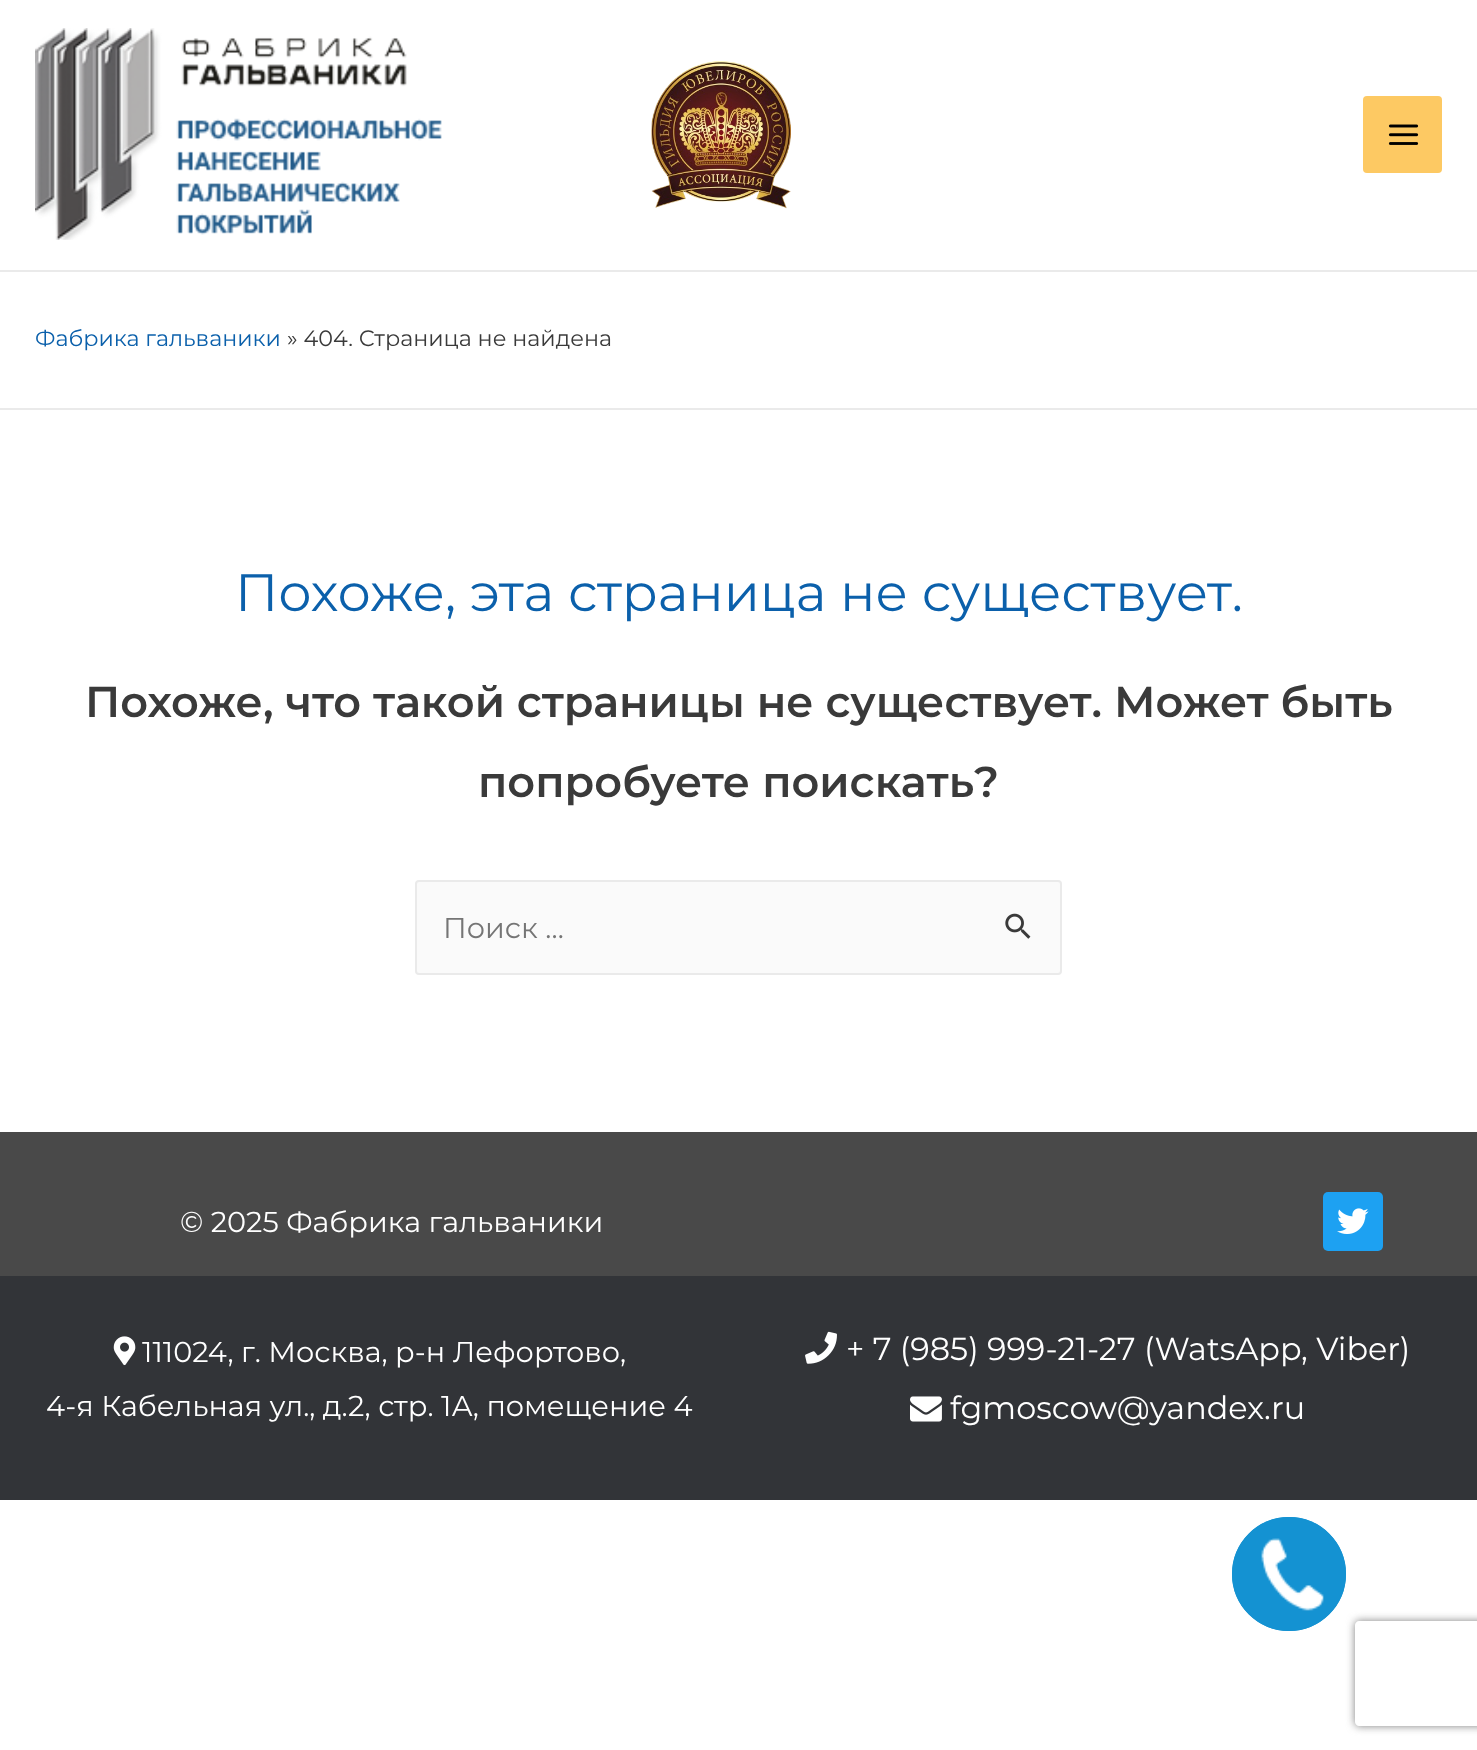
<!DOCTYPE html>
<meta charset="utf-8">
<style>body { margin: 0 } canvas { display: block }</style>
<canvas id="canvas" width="1477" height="1750"></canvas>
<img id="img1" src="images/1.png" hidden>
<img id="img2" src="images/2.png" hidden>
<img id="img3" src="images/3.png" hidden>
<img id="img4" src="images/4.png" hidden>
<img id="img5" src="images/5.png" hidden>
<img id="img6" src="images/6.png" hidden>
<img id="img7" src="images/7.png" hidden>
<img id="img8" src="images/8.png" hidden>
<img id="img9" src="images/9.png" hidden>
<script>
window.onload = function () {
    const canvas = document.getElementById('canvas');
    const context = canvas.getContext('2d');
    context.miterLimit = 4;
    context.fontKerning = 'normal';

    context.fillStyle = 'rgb(255, 255, 255)';
    context.fillRect(0, 0, 1477, 1750);
    context.fillStyle = 'rgb(234, 234, 234)';
    context.fillRect(0, 270, 1477, 2);
    context.drawImage(document.getElementById('img1'), 35, 28, 407, 212);
    context.drawImage(document.getElementById('img2'), 651, 61, 140, 148);
    context.fillStyle = 'rgb(253, 201, 99)';
    context.beginPath();
    context.roundRect(1363, 96, 79, 77, 4);
    context.fill();
    context.drawImage(document.getElementById('img3'), 1388, 124, 31, 21);
    context.fillStyle = 'rgb(234, 234, 234)';
    context.fillRect(0, 408, 1477, 2);
    context.fillStyle = 'rgb(250, 250, 250)';
    context.beginPath();
    context.roundRect(416, 881, 645, 93, 3);
    context.fill();
    context.strokeStyle = 'rgb(234, 234, 234)';
    context.lineWidth = 2;
    context.stroke();
    context.drawImage(document.getElementById('img4'), 1005, 913, 26, 26);
    context.fillStyle = 'rgb(50, 52, 56)';
    context.fillRect(0, 1276, 1477, 224);
    context.fillStyle = 'rgb(73, 73, 73)';
    context.fillRect(0, 1132, 1477, 144);
    context.fillStyle = 'rgb(29, 161, 242)';
    context.beginPath();
    context.roundRect(1323, 1192, 60, 59, 5);
    context.fill();
    context.drawImage(document.getElementById('img5'), 1337, 1208, 32, 26);
    context.drawImage(document.getElementById('img6'), 113, 1336, 23, 30);
    context.drawImage(document.getElementById('img7'), 805, 1331, 32, 33);
    context.drawImage(document.getElementById('img8'), 910, 1396, 32, 26);
    context.save();
    context.beginPath();
    context.moveTo(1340, 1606);
    context.lineTo(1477, 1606);
    context.lineTo(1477, 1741);
    context.lineTo(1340, 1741);
    context.closePath();
    context.moveTo(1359, 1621);
    context.lineTo(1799, 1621);
    context.bezierCurveTo(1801, 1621, 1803, 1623, 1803, 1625);
    context.lineTo(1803, 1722);
    context.bezierCurveTo(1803, 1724, 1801, 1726, 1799, 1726);
    context.lineTo(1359, 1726);
    context.bezierCurveTo(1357, 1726, 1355, 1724, 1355, 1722);
    context.lineTo(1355, 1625);
    context.bezierCurveTo(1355, 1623, 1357, 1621, 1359, 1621);
    context.closePath();
    context.clip('evenodd');
    context.fillStyle = 'rgb(128, 128, 128)';
    context.filter = 'blur(4.5px)';
    context.beginPath();
    context.roundRect(1355, 1621, 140, 105, 4);
    context.fill();
    context.filter = 'none';
    context.restore();
    context.beginPath();
    context.arc(1289, 1574, 56, 0, 2 * Math.PI);
    context.strokeStyle = 'rgb(20, 146, 210)';
    context.stroke();
    context.fillStyle = 'rgb(20, 146, 210)';
    context.beginPath();
    context.arc(1289, 1574, 57, 0, 2 * Math.PI);
    context.fill();
    context.drawImage(document.getElementById('img9'), 1261, 1538, 63, 73);
    context.font = '22.3px Montserrat';
    context.fillStyle = 'rgb(11, 96, 171)';
    context.fillText('Фабрика гальваники', 35, 346);
    context.fillStyle = 'rgb(58, 58, 58)';
    context.fillText('» 404. Страница не найдена', 287, 346);
    context.font = '52.5px Montserrat';
    context.fillStyle = 'rgb(11, 96, 171)';
    context.fillText('Похоже, эта страница не существует.', 235, 611);
    context.font = '600 43.1px Montserrat';
    context.fillStyle = 'rgb(58, 58, 58)';
    context.fillText('Похоже, что такой страницы не существует. Может быть', 85, 717);
    context.fillText('попробуете поискать?', 478, 797);
    context.font = '28.75px Montserrat';
    context.fillStyle = 'rgb(117, 117, 117)';
    context.fillText('Поиск …', 443, 938);
    context.fillStyle = 'rgb(255, 255, 255)';
    context.fillText('© 2025 Фабрика гальваники', 180, 1232);
    context.fillText('111024, г. Москва, р-н Лефортово,', 142, 1362);
    context.fillText('4-я Кабельная ул., д.2, стр. 1А, помещение 4', 46, 1416);
    context.font = '31.9px Montserrat';
    context.fillText('+ 7 (985) 999-21-27 (WatsApp, Viber)', 846, 1360);
    context.fillText('fgmoscow@yandex.ru', 950, 1419);
};
</script>
